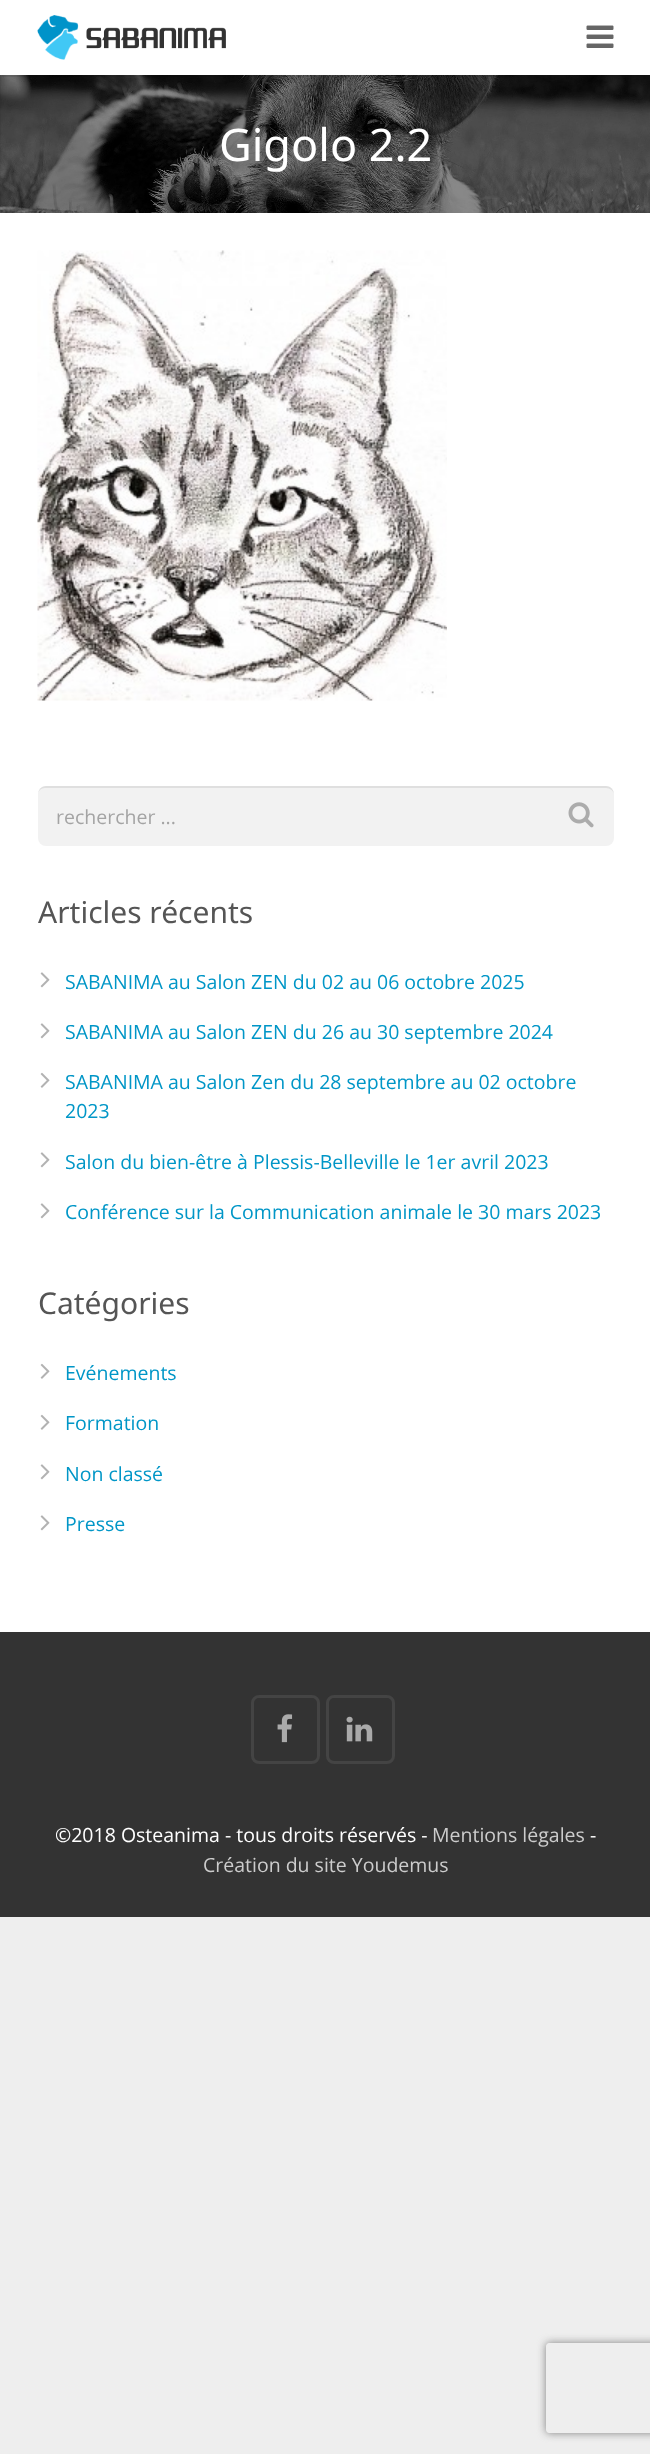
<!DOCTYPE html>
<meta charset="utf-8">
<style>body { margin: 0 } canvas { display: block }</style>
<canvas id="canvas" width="650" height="2454"></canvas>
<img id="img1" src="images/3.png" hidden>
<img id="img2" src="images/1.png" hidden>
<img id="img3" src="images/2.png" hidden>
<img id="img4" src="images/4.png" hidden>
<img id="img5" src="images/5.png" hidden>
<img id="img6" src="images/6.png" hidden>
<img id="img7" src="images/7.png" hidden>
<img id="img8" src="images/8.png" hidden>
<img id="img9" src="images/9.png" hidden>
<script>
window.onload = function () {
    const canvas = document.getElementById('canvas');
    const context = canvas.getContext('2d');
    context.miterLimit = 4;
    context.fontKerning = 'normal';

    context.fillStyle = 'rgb(238, 238, 238)';
    context.fillRect(0, 0, 650, 2454);
    context.fillStyle = 'rgb(255, 255, 255)';
    context.fillRect(0, 0, 650, 1632);
    context.drawImage(document.getElementById('img1'), 0, 75, 650, 138);
    context.fillStyle = 'rgba(0, 0, 0, 0.08)';
    context.fillRect(2, 75, 496, 2);
    context.drawImage(document.getElementById('img2'), 37, 15, 189, 45);
    context.drawImage(document.getElementById('img3'), 586, 25, 28, 23);
    context.drawImage(document.getElementById('img4'), 37, 250, 410, 451);
    context.fillStyle = 'rgb(242, 242, 242)';
    context.beginPath();
    context.roundRect(38, 786, 576, 60, 8);
    context.fill();
    context.fillStyle = 'rgba(0, 0, 0, 0.08)';
    context.beginPath();
    context.moveTo(45, 788);
    context.lineTo(606, 788);
    context.bezierCurveTo(610, 788, 614, 791, 614, 795);
    context.bezierCurveTo(614, 790, 611, 786, 606, 786);
    context.lineTo(46, 786);
    context.bezierCurveTo(41, 786, 38, 790, 38, 795);
    context.bezierCurveTo(38, 791, 41, 788, 45, 788);
    context.closePath();
    context.fill();
    context.drawImage(document.getElementById('img5'), 568, 802, 26, 26);
    context.drawImage(document.getElementById('img6'), 40, 972, 10, 16);
    context.drawImage(document.getElementById('img6'), 40, 1023, 10, 16);
    context.drawImage(document.getElementById('img7'), 40, 1072, 10, 16);
    context.drawImage(document.getElementById('img6'), 40, 1152, 10, 16);
    context.drawImage(document.getElementById('img6'), 40, 1203, 10, 16);
    context.drawImage(document.getElementById('img7'), 40, 1363, 10, 16);
    context.drawImage(document.getElementById('img7'), 40, 1414, 10, 16);
    context.drawImage(document.getElementById('img6'), 40, 1464, 10, 16);
    context.drawImage(document.getElementById('img6'), 40, 1515, 10, 16);
    context.fillStyle = 'rgb(51, 51, 51)';
    context.fillRect(0, 1632, 650, 285);
    context.beginPath();
    context.roundRect(252.5, 1696.5, 66, 66, 6.5);
    context.strokeStyle = 'rgb(68, 68, 68)';
    context.lineWidth = 3;
    context.stroke();
    context.drawImage(document.getElementById('img8'), 277, 1714, 16, 29);
    context.beginPath();
    context.roundRect(327.5, 1696.5, 66, 66, 6.5);
    context.stroke();
    context.drawImage(document.getElementById('img9'), 346, 1716, 27, 26);
    context.save();
    context.beginPath();
    context.moveTo(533, 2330);
    context.lineTo(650, 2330);
    context.lineTo(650, 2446);
    context.lineTo(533, 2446);
    context.closePath();
    context.moveTo(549, 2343);
    context.lineTo(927, 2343);
    context.bezierCurveTo(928.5, 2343, 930, 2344.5, 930, 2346);
    context.lineTo(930, 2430);
    context.bezierCurveTo(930, 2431.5, 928.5, 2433, 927, 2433);
    context.lineTo(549, 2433);
    context.bezierCurveTo(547.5, 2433, 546, 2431.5, 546, 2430);
    context.lineTo(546, 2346);
    context.bezierCurveTo(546, 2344.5, 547.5, 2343, 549, 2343);
    context.closePath();
    context.clip('evenodd');
    context.fillStyle = 'rgb(128, 128, 128)';
    context.filter = 'blur(4px)';
    context.beginPath();
    context.roundRect(546, 2343, 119, 90, 3);
    context.fill();
    context.filter = 'none';
    context.restore();
    context.font = '45px Noto Sans';
    context.fillStyle = 'rgb(255, 255, 255)';
    context.fillText('Gigolo 2.2', 219, 161);
    context.font = '19.5px Open Sans';
    context.fillStyle = 'rgb(164, 164, 164)';
    context.fillText('rechercher ...', 56, 824);
    context.font = '30px Noto Sans';
    context.fillStyle = 'rgb(85, 85, 85)';
    context.fillText('Articles récents', 38, 923);
    context.font = '19.5px Open Sans';
    context.fillStyle = 'rgb(0, 150, 199)';
    context.fillText('SABANIMA au Salon ZEN du 02 au 06 octobre 2025', 65, 989);
    context.fillText('SABANIMA au Salon ZEN du 26 au 30 septembre 2024', 65, 1039);
    context.fillText('SABANIMA au Salon Zen du 28 septembre au 02 octobre', 65, 1089);
    context.fillText('2023', 65, 1118);
    context.fillText('Salon du bien-être à Plessis-Belleville le 1er avril 2023', 65, 1169);
    context.fillText('Conférence sur la Communication animale le 30 mars 2023', 65, 1219);
    context.font = '30px Noto Sans';
    context.fillStyle = 'rgb(85, 85, 85)';
    context.fillText('Catégories', 38, 1314);
    context.font = '19.5px Open Sans';
    context.fillStyle = 'rgb(0, 150, 199)';
    context.fillText('Evénements', 65, 1380);
    context.fillText('Formation', 65, 1430);
    context.fillText('Non classé', 65, 1481);
    context.fillText('Presse', 65, 1531);
    context.fillStyle = 'rgb(255, 255, 255)';
    context.fillText('©2018 Osteanima - tous droits réservés -', 55, 1842);
    context.fillStyle = 'rgb(204, 204, 204)';
    context.fillText('Mentions légales', 432, 1842);
    context.fillStyle = 'rgb(255, 255, 255)';
    context.fillText('-', 590, 1842);
    context.fillStyle = 'rgb(204, 204, 204)';
    context.fillText('Création du site Youdemus', 203, 1872);
};
</script>
